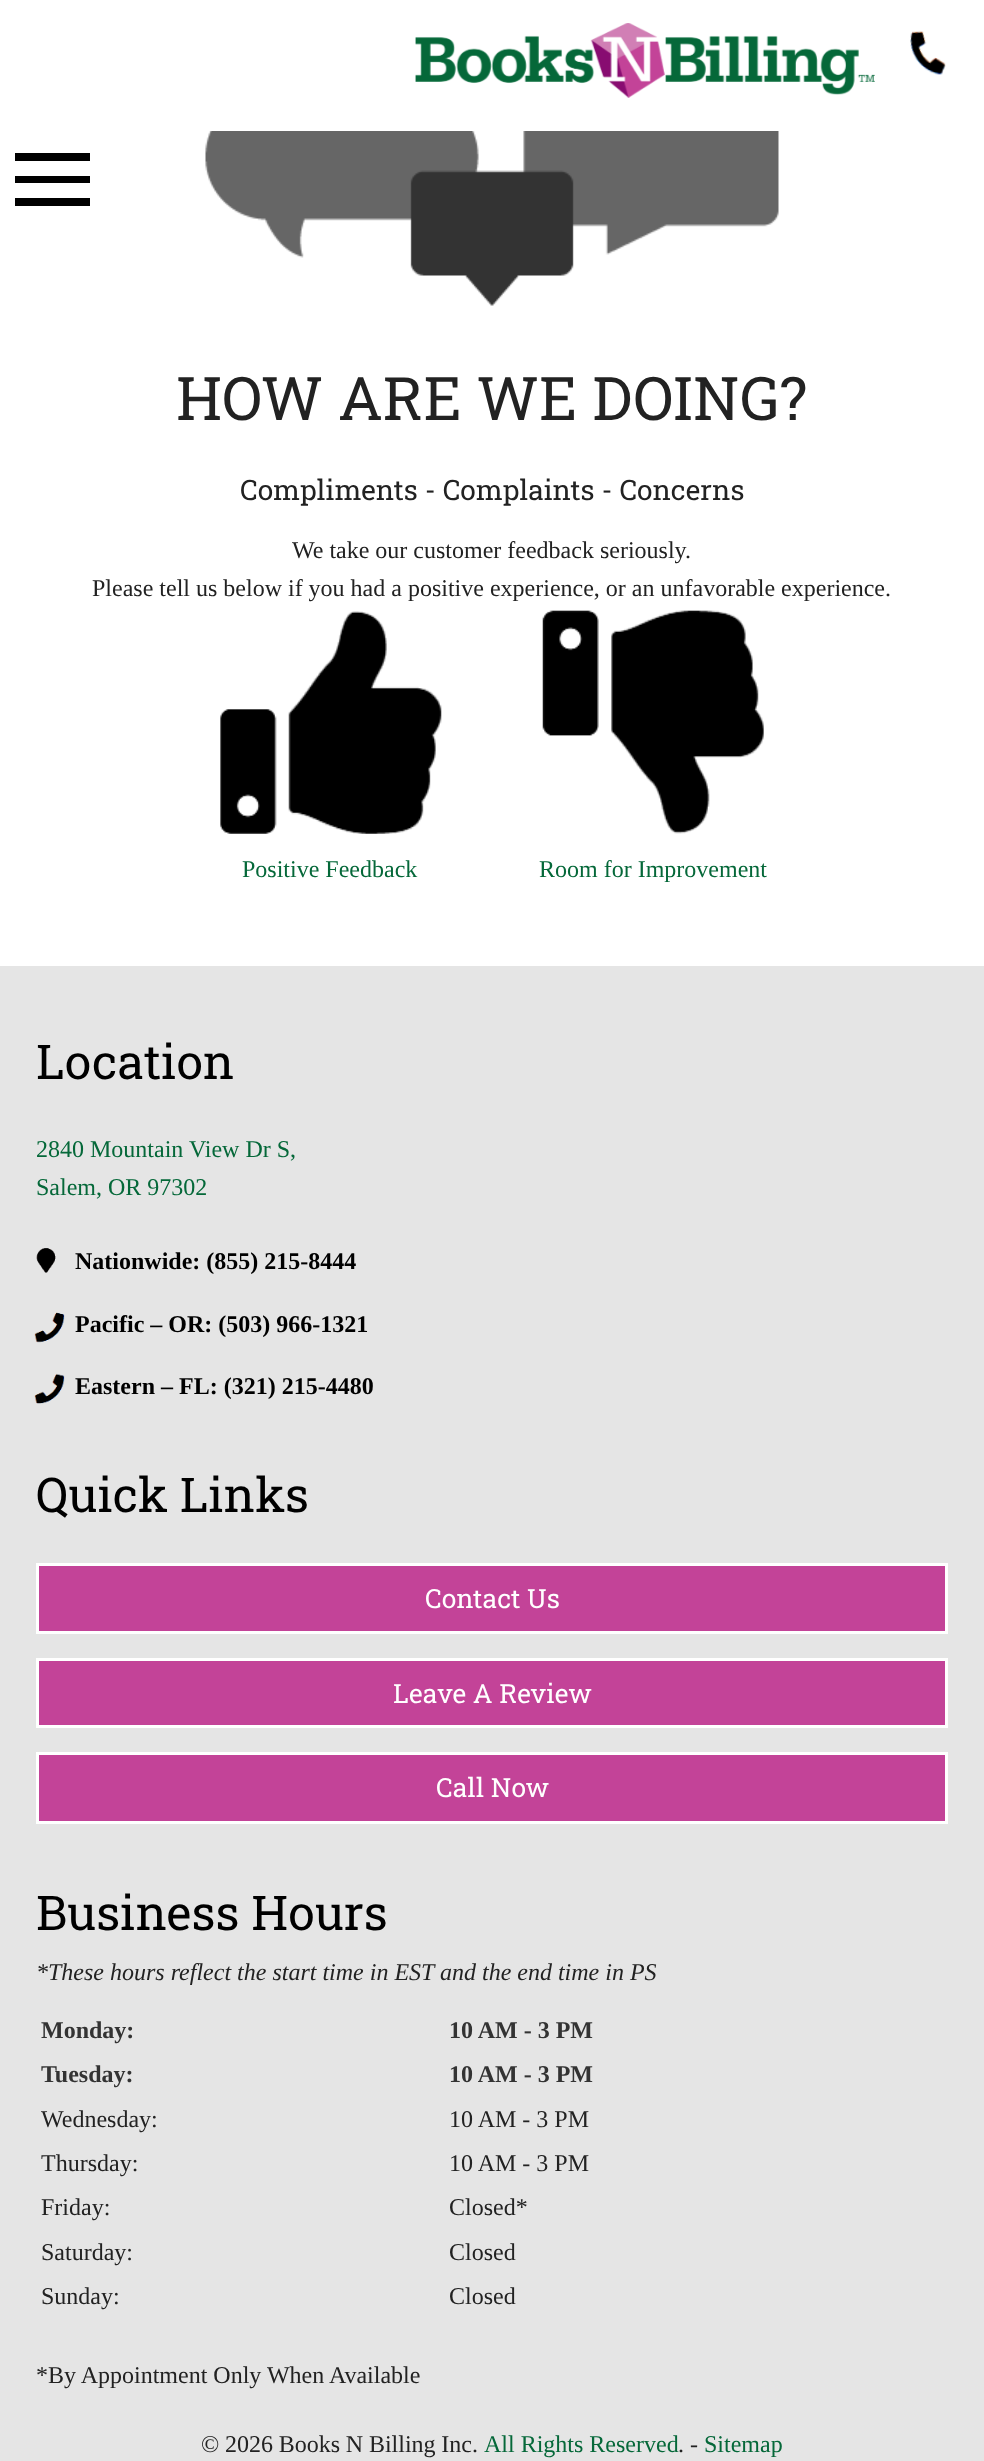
<!DOCTYPE html>
<meta charset="utf-8">
<style>body { margin: 0 } canvas { display: block }</style>
<canvas id="canvas" width="984" height="2461"></canvas>
<img id="img1" src="images/1.png" hidden>
<img id="img2" src="images/2.png" hidden>
<img id="img3" src="images/3.png" hidden>
<img id="img4" src="images/4.png" hidden>
<img id="img5" src="images/5.png" hidden>
<img id="img6" src="images/6.png" hidden>
<img id="img7" src="images/7.png" hidden>
<img id="img8" src="images/8.png" hidden>
<script>
window.onload = function () {
    const canvas = document.getElementById('canvas');
    const context = canvas.getContext('2d');
    context.miterLimit = 4;
    context.fontKerning = 'normal';

    context.fillStyle = 'rgb(255, 255, 255)';
    context.fillRect(0, 0, 984, 2461);
    context.drawImage(document.getElementById('img1'), 415, 23, 460, 75);
    context.drawImage(document.getElementById('img2'), 910, 30, 36, 45);
    context.fillStyle = 'rgb(0, 0, 0)';
    context.fillRect(15, 153, 75, 8);
    context.fillRect(15, 176, 75, 7);
    context.fillRect(15, 198, 75, 8);
    context.drawImage(document.getElementById('img3'), 205, 131, 574, 175);
    context.drawImage(document.getElementById('img4'), 220, 611, 222, 223);
    context.drawImage(document.getElementById('img5'), 542, 610, 222, 224);
    context.fillStyle = 'rgb(229, 229, 229)';
    context.fillRect(0, 966, 984, 1495);
    context.drawImage(document.getElementById('img6'), 36, 1248, 20, 25);
    context.drawImage(document.getElementById('img7'), 34, 1312, 31, 31);
    context.drawImage(document.getElementById('img8'), 34, 1373, 31, 31);
    context.fillStyle = 'rgb(195, 67, 152)';
    context.beginPath();
    context.rect(37.5, 1564.5, 909, 68);
    context.fill();
    context.strokeStyle = 'rgb(255, 255, 255)';
    context.lineWidth = 3;
    context.stroke();
    context.beginPath();
    context.rect(37.5, 1659.5, 909, 67);
    context.fill();
    context.stroke();
    context.beginPath();
    context.rect(37.5, 1753.5, 909, 69);
    context.fill();
    context.stroke();
    context.font = '60px Roboto Slab';
    context.fillStyle = 'rgb(34, 34, 34)';
    context.fillText('HOW ARE WE DOING?', 176, 420);
    context.font = '28.1px Roboto Slab';
    context.fillText('Compliments - Complaints - Concerns', 240, 500);
    context.font = '24px Liberation Serif';
    context.fillText('We take our customer feedback seriously.', 292, 558);
    context.fillText('Please tell us below if you had a positive experience, or an unfavorable experience.', 92, 596);
    context.fillStyle = 'rgb(5, 104, 57)';
    context.fillText('Positive Feedback', 242, 877);
    context.fillText('Room for Improvement', 539, 877);
    context.font = '48px Roboto Slab';
    context.fillStyle = 'rgb(0, 0, 0)';
    context.fillText('Location', 36, 1079);
    context.font = '24px Liberation Serif';
    context.fillStyle = 'rgb(5, 104, 57)';
    context.fillText('2840 Mountain View Dr S,', 36, 1157);
    context.fillText('Salem, OR 97302', 36, 1195);
    context.font = 'bold 24px Liberation Serif';
    context.fillStyle = 'rgb(0, 0, 0)';
    context.fillText('Nationwide: (855) 215-8444', 75, 1269);
    context.fillText('Pacific – OR: (503) 966-1321', 75, 1332);
    context.fillText('Eastern – FL: (321) 215-4480', 75, 1394);
    context.font = '48px Roboto Slab';
    context.fillText('Quick Links', 36, 1512);
    context.font = '26.5px Roboto Slab';
    context.fillStyle = 'rgb(255, 255, 255)';
    context.fillText('Contact Us', 425, 1608);
    context.fillText('Leave A Review', 393, 1703);
    context.fillText('Call Now', 436, 1797);
    context.font = '48px Roboto Slab';
    context.fillStyle = 'rgb(0, 0, 0)';
    context.fillText('Business Hours', 36, 1930);
    context.font = 'italic 24px Liberation Serif';
    context.fillStyle = 'rgb(34, 34, 34)';
    context.fillText('*These hours reflect the start time in EST and the end time in PS', 36, 1980);
    context.font = 'bold 24px Liberation Serif';
    context.fillStyle = 'rgb(51, 51, 51)';
    context.fillText('Monday:', 41, 2038);
    context.fillText('10 AM - 3 PM', 449, 2038);
    context.fillText('Tuesday:', 41, 2082);
    context.fillText('10 AM - 3 PM', 449, 2082);
    context.font = '24px Liberation Serif';
    context.fillStyle = 'rgb(34, 34, 34)';
    context.fillText('Wednesday:', 41, 2127);
    context.fillText('10 AM - 3 PM', 449, 2127);
    context.fillText('Thursday:', 41, 2171);
    context.fillText('10 AM - 3 PM', 449, 2171);
    context.fillText('Friday:', 41, 2215);
    context.fillText('Closed*', 449, 2215);
    context.fillText('Saturday:', 41, 2260);
    context.fillText('Closed', 449, 2260);
    context.fillText('Sunday:', 41, 2304);
    context.fillText('Closed', 449, 2304);
    context.fillText('*By Appointment Only When Available', 36, 2383);
    context.wordSpacing = '-0.25px';
    context.fillText('© 2026 Books N Billing Inc.', 201, 2452);
    context.wordSpacing = '0px';
    context.fillStyle = 'rgb(5, 104, 57)';
    context.fillText('All Rights Reserved', 484, 2452);
    context.fillStyle = 'rgb(34, 34, 34)';
    context.fillText('. -', 678, 2452);
    context.fillStyle = 'rgb(5, 104, 57)';
    context.fillText('Sitemap', 704, 2452);
};
</script>
